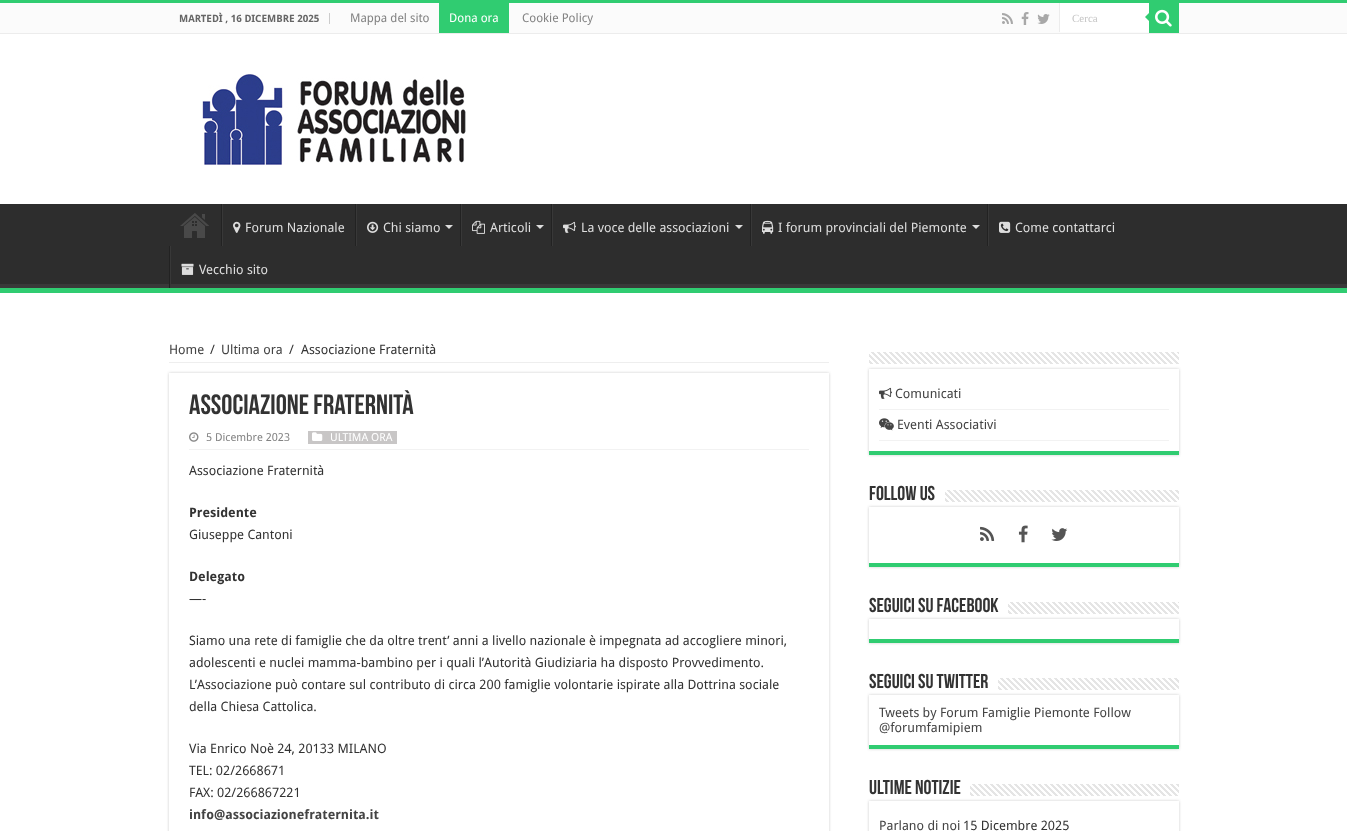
<!DOCTYPE html>
<meta charset="utf-8">
<style>body { margin: 0 } canvas { display: block }</style>
<canvas id="canvas" width="1347" height="831"></canvas>
<img id="img1" src="images/1.png" hidden>
<img id="img2" src="images/2.png" hidden>
<img id="img3" src="images/3.png" hidden>
<img id="img4" src="images/4.png" hidden>
<img id="img5" src="images/5.png" hidden>
<img id="img6" src="images/6.png" hidden>
<img id="img7" src="images/7.png" hidden>
<img id="img8" src="images/8.png" hidden>
<img id="img9" src="images/9.png" hidden>
<img id="img10" src="images/10.png" hidden>
<img id="img11" src="images/11.png" hidden>
<img id="img12" src="images/12.png" hidden>
<img id="img13" src="images/13.png" hidden>
<img id="img14" src="images/14.png" hidden>
<img id="img15" src="images/15.png" hidden>
<img id="img16" src="images/16.png" hidden>
<img id="img17" src="images/17.png" hidden>
<img id="img18" src="images/18.png" hidden>
<img id="img19" src="images/19.png" hidden>
<img id="img20" src="images/20.png" hidden>
<img id="img21" src="images/21.png" hidden>
<img id="img22" src="images/22.png" hidden>
<img id="img23" src="images/23.png" hidden>
<img id="img24" src="images/24.png" hidden>
<img id="img25" src="images/25.png" hidden>
<script>
window.onload = function () {
    const canvas = document.getElementById('canvas');
    const context = canvas.getContext('2d');
    context.miterLimit = 4;
    context.fontKerning = 'normal';

    context.fillStyle = 'rgb(255, 255, 255)';
    context.fillRect(0, 0, 1347, 831);
    context.fillStyle = 'rgb(48, 204, 113)';
    context.fillRect(0, 0, 1347, 3);
    context.fillStyle = 'rgb(251, 251, 251)';
    context.fillRect(0, 3, 1347, 30);
    context.fillStyle = 'rgb(236, 236, 236)';
    context.fillRect(0, 33, 1347, 1);
    context.fillStyle = 'rgb(204, 204, 204)';
    context.fillRect(329, 13, 1, 11);
    context.fillStyle = 'rgb(48, 204, 113)';
    context.fillRect(439, 3, 70, 30);
    context.drawImage(document.getElementById('img1'), 1002, 13, 11, 11);
    context.drawImage(document.getElementById('img2'), 1021, 12, 8, 13);
    context.drawImage(document.getElementById('img3'), 1037, 14, 13, 10);
    context.fillStyle = 'rgb(255, 255, 255)';
    context.fillRect(1060, 3, 89, 29);
    context.fillStyle = 'rgb(236, 236, 236)';
    context.fillRect(1059, 3, 1, 29);
    context.fillStyle = 'rgb(48, 204, 113)';
    context.fillRect(1149, 3, 30, 30);
    context.drawImage(document.getElementById('img4'), 1155, 9, 17, 18);
    context.beginPath();
    context.moveTo(1149, 13);
    context.lineTo(1149, 21);
    context.lineTo(1145, 17);
    context.closePath();
    context.fill();
    context.drawImage(document.getElementById('img5'), 202, 74, 264, 91);
    context.fillStyle = 'rgb(45, 45, 45)';
    context.fillRect(0, 204, 1347, 80);
    context.save();
    context.beginPath();
    context.rect(0, 204, 1347, 84);
    context.clip();
    context.fillStyle = 'rgb(57, 57, 57)';
    context.beginPath();
    context.moveTo(-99, 105);
    context.lineTo(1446, 105);
    context.lineTo(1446, 387);
    context.lineTo(-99, 387);
    context.closePath();
    context.moveTo(-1, 198);
    context.lineTo(1346, 198);
    context.bezierCurveTo(1347, 198, 1347, 198, 1347, 199);
    context.lineTo(1347, 283);
    context.bezierCurveTo(1347, 284, 1347, 284, 1346, 284);
    context.lineTo(-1, 284);
    context.bezierCurveTo(-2, 284, -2, 284, -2, 283);
    context.lineTo(-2, 199);
    context.bezierCurveTo(-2, 198, -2, 198, -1, 198);
    context.closePath();
    context.fill('evenodd');
    context.restore();
    context.fillStyle = 'rgb(48, 204, 113)';
    context.fillRect(0, 288, 1347, 5);
    context.drawImage(document.getElementById('img6'), 180, 213, 29, 25);
    context.fillStyle = 'rgb(34, 34, 34)';
    context.fillRect(221, 204, 1, 42);
    context.fillStyle = 'rgb(56, 56, 56)';
    context.fillRect(222, 204, 1, 42);
    context.drawImage(document.getElementById('img7'), 233, 221, 8, 12);
    context.fillStyle = 'rgb(34, 34, 34)';
    context.fillRect(355, 204, 1, 42);
    context.fillStyle = 'rgb(56, 56, 56)';
    context.fillRect(356, 204, 1, 42);
    context.drawImage(document.getElementById('img8'), 367, 221, 12, 12);
    context.fillStyle = 'rgb(221, 221, 221)';
    context.beginPath();
    context.moveTo(445, 225);
    context.lineTo(453, 225);
    context.lineTo(449, 229);
    context.closePath();
    context.fill();
    context.fillStyle = 'rgb(34, 34, 34)';
    context.fillRect(460, 204, 1, 42);
    context.fillStyle = 'rgb(56, 56, 56)';
    context.fillRect(461, 204, 1, 42);
    context.drawImage(document.getElementById('img9'), 472, 220, 13, 14);
    context.fillStyle = 'rgb(221, 221, 221)';
    context.beginPath();
    context.moveTo(536, 225);
    context.lineTo(544, 225);
    context.lineTo(540, 229);
    context.closePath();
    context.fill();
    context.fillStyle = 'rgb(34, 34, 34)';
    context.fillRect(551, 204, 1, 42);
    context.fillStyle = 'rgb(56, 56, 56)';
    context.fillRect(552, 204, 1, 42);
    context.drawImage(document.getElementById('img10'), 563, 221, 13, 12);
    context.fillStyle = 'rgb(221, 221, 221)';
    context.beginPath();
    context.moveTo(735, 225);
    context.lineTo(743, 225);
    context.lineTo(739, 229);
    context.closePath();
    context.fill();
    context.fillStyle = 'rgb(34, 34, 34)';
    context.fillRect(750, 204, 1, 42);
    context.fillStyle = 'rgb(56, 56, 56)';
    context.fillRect(751, 204, 1, 42);
    context.drawImage(document.getElementById('img11'), 762, 220, 12, 14);
    context.fillStyle = 'rgb(221, 221, 221)';
    context.beginPath();
    context.moveTo(972, 225);
    context.lineTo(980, 225);
    context.lineTo(976, 229);
    context.closePath();
    context.fill();
    context.fillStyle = 'rgb(34, 34, 34)';
    context.fillRect(987, 204, 1, 42);
    context.fillStyle = 'rgb(56, 56, 56)';
    context.fillRect(988, 204, 1, 42);
    context.drawImage(document.getElementById('img12'), 999, 221, 12, 12);
    context.fillStyle = 'rgb(34, 34, 34)';
    context.fillRect(169, 246, 1, 42);
    context.fillStyle = 'rgb(56, 56, 56)';
    context.fillRect(170, 246, 1, 42);
    context.drawImage(document.getElementById('img13'), 181, 263, 13, 12);
    context.fillStyle = 'rgb(238, 238, 238)';
    context.fillRect(169, 362, 660, 1);
    context.save();
    context.beginPath();
    context.moveTo(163, 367);
    context.lineTo(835, 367);
    context.lineTo(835, 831);
    context.lineTo(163, 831);
    context.closePath();
    context.moveTo(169, 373);
    context.lineTo(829, 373);
    context.lineTo(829, 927);
    context.lineTo(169, 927);
    context.closePath();
    context.clip('evenodd');
    context.fillStyle = 'rgb(202, 202, 202)';
    context.filter = 'blur(1.5px)';
    context.beginPath();
    context.rect(169, 373, 660, 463);
    context.fill();
    context.filter = 'none';
    context.restore();
    context.fillStyle = 'rgb(242, 242, 242)';
    context.fillRect(189, 449, 620, 1);
    context.drawImage(document.getElementById('img14'), 189, 432, 10, 10);
    context.fillStyle = 'rgb(200, 198, 198)';
    context.fillRect(308, 431, 89, 13);
    context.drawImage(document.getElementById('img15'), 312, 432, 11, 9);
    context.save();
    context.beginPath();
    context.moveTo(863, 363);
    context.lineTo(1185, 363);
    context.lineTo(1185, 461);
    context.lineTo(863, 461);
    context.closePath();
    context.moveTo(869, 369);
    context.lineTo(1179, 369);
    context.lineTo(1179, 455);
    context.lineTo(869, 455);
    context.closePath();
    context.clip('evenodd');
    context.fillStyle = 'rgb(202, 202, 202)';
    context.filter = 'blur(1.5px)';
    context.beginPath();
    context.rect(869, 369, 310, 86);
    context.fill();
    context.filter = 'none';
    context.restore();
    context.drawImage(document.getElementById('img16'), 869, 352, 310, 12);
    context.fillStyle = 'rgb(48, 204, 113)';
    context.fillRect(869, 451, 310, 4);
    context.fillStyle = 'rgb(242, 242, 242)';
    context.fillRect(879, 409, 290, 1);
    context.drawImage(document.getElementById('img17'), 879, 387, 13, 12);
    context.fillRect(879, 440, 290, 1);
    context.drawImage(document.getElementById('img18'), 879, 418, 15, 13);
    context.save();
    context.beginPath();
    context.moveTo(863, 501);
    context.lineTo(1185, 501);
    context.lineTo(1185, 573);
    context.lineTo(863, 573);
    context.closePath();
    context.moveTo(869, 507);
    context.lineTo(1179, 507);
    context.lineTo(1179, 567);
    context.lineTo(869, 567);
    context.closePath();
    context.clip('evenodd');
    context.fillStyle = 'rgb(202, 202, 202)';
    context.filter = 'blur(1.5px)';
    context.beginPath();
    context.rect(869, 507, 310, 60);
    context.fill();
    context.filter = 'none';
    context.restore();
    context.drawImage(document.getElementById('img19'), 945, 490, 234, 12);
    context.fillStyle = 'rgb(48, 204, 113)';
    context.fillRect(869, 563, 310, 4);
    context.drawImage(document.getElementById('img20'), 980, 526, 15, 15);
    context.drawImage(document.getElementById('img21'), 1018, 525, 10, 18);
    context.drawImage(document.getElementById('img22'), 1051, 528, 17, 13);
    context.save();
    context.beginPath();
    context.moveTo(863, 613);
    context.lineTo(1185, 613);
    context.lineTo(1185, 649);
    context.lineTo(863, 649);
    context.closePath();
    context.moveTo(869, 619);
    context.lineTo(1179, 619);
    context.lineTo(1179, 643);
    context.lineTo(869, 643);
    context.closePath();
    context.clip('evenodd');
    context.fillStyle = 'rgb(202, 202, 202)';
    context.filter = 'blur(1.5px)';
    context.beginPath();
    context.rect(869, 619, 310, 24);
    context.fill();
    context.filter = 'none';
    context.restore();
    context.drawImage(document.getElementById('img23'), 1008, 602, 171, 12);
    context.fillRect(869, 639, 310, 4);
    context.save();
    context.beginPath();
    context.moveTo(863, 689);
    context.lineTo(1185, 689);
    context.lineTo(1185, 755);
    context.lineTo(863, 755);
    context.closePath();
    context.moveTo(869, 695);
    context.lineTo(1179, 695);
    context.lineTo(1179, 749);
    context.lineTo(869, 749);
    context.closePath();
    context.clip('evenodd');
    context.fillStyle = 'rgb(202, 202, 202)';
    context.filter = 'blur(1.5px)';
    context.beginPath();
    context.rect(869, 695, 310, 54);
    context.fill();
    context.filter = 'none';
    context.restore();
    context.drawImage(document.getElementById('img24'), 998, 678, 181, 12);
    context.fillRect(869, 745, 310, 4);
    context.save();
    context.beginPath();
    context.moveTo(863, 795);
    context.lineTo(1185, 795);
    context.lineTo(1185, 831);
    context.lineTo(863, 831);
    context.closePath();
    context.moveTo(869, 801);
    context.lineTo(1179, 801);
    context.lineTo(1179, 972);
    context.lineTo(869, 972);
    context.closePath();
    context.clip('evenodd');
    context.fillStyle = 'rgb(202, 202, 202)';
    context.filter = 'blur(1.5px)';
    context.beginPath();
    context.rect(869, 801, 310, 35);
    context.fill();
    context.filter = 'none';
    context.restore();
    context.drawImage(document.getElementById('img25'), 970, 784, 209, 12);
    context.font = 'bold 10px Droid Sans';
    context.fillStyle = 'rgb(102, 102, 102)';
    context.fillText('MARTEDÌ , 16 DICEMBRE 2025', 179, 22);
    context.font = '12px Droid Sans';
    context.fillStyle = 'rgb(131, 131, 131)';
    context.fillText('Mappa del sito', 350, 22);
    context.fillStyle = 'rgb(255, 255, 255)';
    context.fillText('Dona ora', 449, 22);
    context.fillStyle = 'rgb(131, 131, 131)';
    context.fillText('Cookie Policy', 522, 22);
    context.font = '11px Liberation Serif';
    context.fillStyle = 'rgb(197, 197, 197)';
    context.fillText('Cerca', 1072, 22);
    context.font = '13px Droid Sans';
    context.fillStyle = 'rgb(221, 221, 221)';
    context.fillText('Forum Nazionale', 245, 232);
    context.fillText('Chi siamo', 383, 232);
    context.fillText('Articoli', 490, 232);
    context.fillText('La voce delle associazioni', 581, 232);
    context.fillText('I forum provinciali del Piemonte', 778, 232);
    context.fillText('Come contattarci', 1015, 232);
    context.fillText('Vecchio sito', 199, 274);
    context.fillStyle = 'rgb(68, 68, 68)';
    context.fillText('Home', 169, 354);
    context.fillStyle = 'rgb(51, 51, 51)';
    context.fillText('/', 210, 354);
    context.fillStyle = 'rgb(68, 68, 68)';
    context.fillText('Ultima ora', 221, 354);
    context.fillStyle = 'rgb(51, 51, 51)';
    context.fillText('/', 289, 354);
    context.fillText('Associazione Fraternità', 301, 354);
    context.font = 'bold 28px Bebas Neue';
    context.fillText('Associazione Fraternità', 189, 414);
    context.font = '11px Droid Sans';
    context.fillStyle = 'rgb(131, 131, 131)';
    context.fillText('5 Dicembre 2023', 206, 441);
    context.fillStyle = 'rgb(255, 255, 255)';
    context.fillText('ULTIMA ORA', 330, 441);
    context.font = '13px Droid Sans';
    context.fillStyle = 'rgb(51, 51, 51)';
    context.fillText('Associazione Fraternità', 189, 475);
    context.font = 'bold 13px Droid Sans';
    context.fillText('Presidente', 189, 517);
    context.font = '13px Droid Sans';
    context.fillText('Giuseppe Cantoni', 189, 539);
    context.font = 'bold 13px Droid Sans';
    context.fillText('Delegato', 189, 581);
    context.font = '13px Droid Sans';
    context.fillText('—-', 189, 603);
    context.fillText('Siamo una rete di famiglie che da oltre trent’ anni a livello nazionale è impegnata ad accogliere minori,', 189, 645);
    context.fillText('adolescenti e nuclei mamma-bambino per i quali l’Autorità Giudiziaria ha disposto Provvedimento.', 189, 667);
    context.fillText('L’Associazione può contare sul contributo di circa 200 famiglie volontarie ispirate alla Dottrina sociale', 189, 689);
    context.fillText('della Chiesa Cattolica.', 189, 711);
    context.fillText('Via Enrico Noè 24, 20133 MILANO', 189, 753);
    context.fillText('TEL: 02/2668671', 189, 775);
    context.fillText('FAX: 02/266867221', 189, 797);
    context.font = 'bold 13px Droid Sans';
    context.fillStyle = 'rgb(68, 68, 68)';
    context.fillText('info@associazionefraternita.it', 189, 819);
    context.font = '13px Droid Sans';
    context.fillText('Comunicati', 895, 398);
    context.fillText('Eventi Associativi', 897, 429);
    context.font = 'bold 20px Bebas Neue';
    context.fillStyle = 'rgb(51, 51, 51)';
    context.fillText('Follow Us', 869, 500);
    context.fillText('Seguici su Facebook', 869, 612);
    context.fillText('Seguici su Twitter', 869, 688);
    context.font = '13px Droid Sans';
    context.fillStyle = 'rgb(68, 68, 68)';
    context.fillText('Tweets by Forum Famiglie Piemonte Follow', 879, 717);
    context.fillText('@forumfamipiem', 879, 732);
    context.font = 'bold 20px Bebas Neue';
    context.fillStyle = 'rgb(51, 51, 51)';
    context.fillText('Ultime notizie', 869, 794);
    context.font = '13px Droid Sans';
    context.fillStyle = 'rgb(68, 68, 68)';
    context.fillText('Parlano di noi', 879, 830);
    context.fillStyle = 'rgb(51, 51, 51)';
    context.fillText('15 Dicembre 2025', 963, 830);
};
</script>
